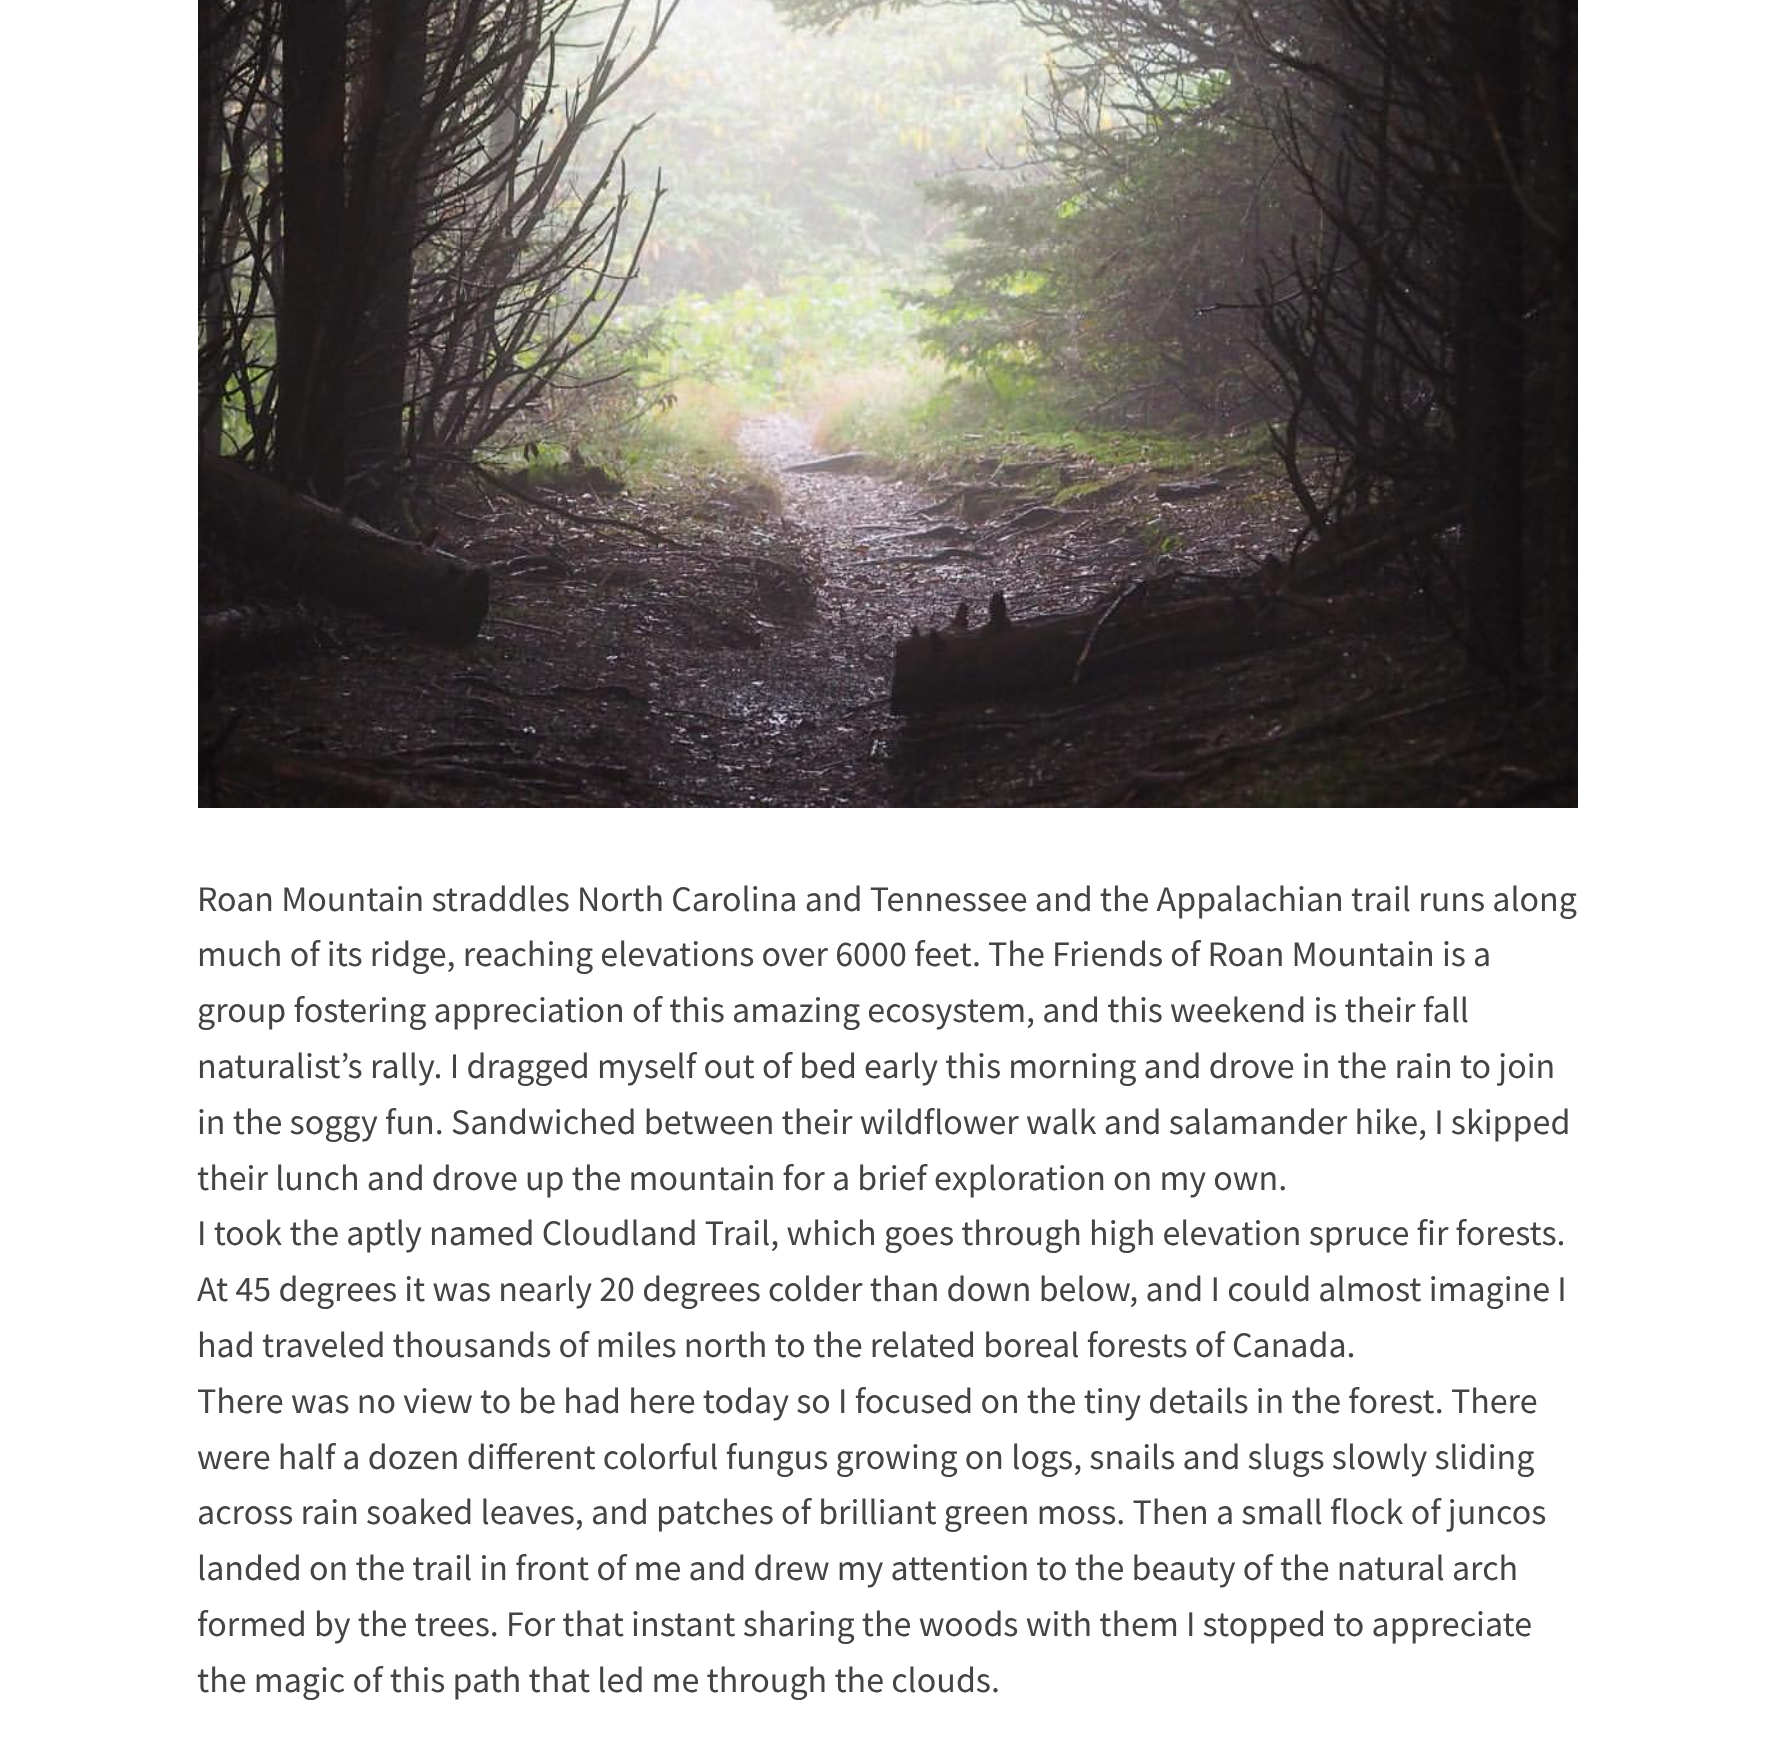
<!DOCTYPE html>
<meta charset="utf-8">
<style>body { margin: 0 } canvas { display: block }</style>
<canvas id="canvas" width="1774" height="1750"></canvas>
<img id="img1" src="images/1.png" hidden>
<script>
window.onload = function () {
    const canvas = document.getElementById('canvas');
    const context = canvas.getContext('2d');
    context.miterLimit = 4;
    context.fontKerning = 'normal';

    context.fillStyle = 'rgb(255, 255, 255)';
    context.fillRect(0, 0, 1774, 1750);
    context.drawImage(document.getElementById('img1'), 198, 0, 1380, 808);
    context.font = '36px Source Sans Pro';
    context.fillStyle = 'rgb(68, 68, 68)';
    context.fillText('Roan Mountain straddles North Carolina and Tennessee and the Appalachian trail runs along', 197, 911);
    context.fillText('much of its ridge, reaching elevations over 6000 feet. The Friends of Roan Mountain is a', 197, 966);
    context.fillText('group fostering appreciation of this amazing ecosystem, and this weekend is their fall', 197, 1022);
    context.fillText('naturalist’s rally. I dragged myself out of bed early this morning and drove in the rain to join', 197, 1078);
    context.fillText('in the soggy fun. Sandwiched between their wildflower walk and salamander hike, I skipped', 197, 1134);
    context.fillText('their lunch and drove up the mountain for a brief exploration on my own.', 197, 1190);
    context.fillText('I took the aptly named Cloudland Trail, which goes through high elevation spruce fir forests.', 197, 1245);
    context.fillText('At 45 degrees it was nearly 20 degrees colder than down below, and I could almost imagine I', 197, 1301);
    context.fillText('had traveled thousands of miles north to the related boreal forests of Canada.', 197, 1357);
    context.fillText('There was no view to be had here today so I focused on the tiny details in the forest. There', 197, 1413);
    context.fillText('were half a dozen different colorful fungus growing on logs, snails and slugs slowly sliding', 197, 1469);
    context.fillText('across rain soaked leaves, and patches of brilliant green moss. Then a small flock of juncos', 197, 1524);
    context.fillText('landed on the trail in front of me and drew my attention to the beauty of the natural arch', 197, 1580);
    context.fillText('formed by the trees. For that instant sharing the woods with them I stopped to appreciate', 197, 1636);
    context.fillText('the magic of this path that led me through the clouds.', 197, 1692);
};
</script>
